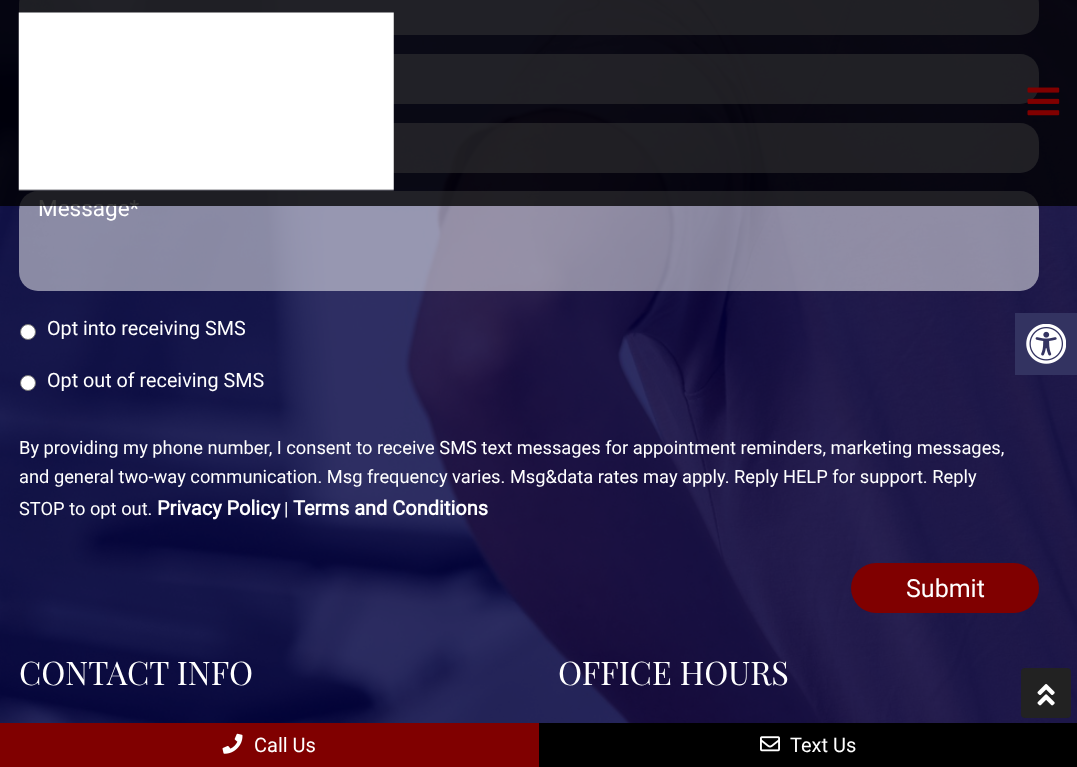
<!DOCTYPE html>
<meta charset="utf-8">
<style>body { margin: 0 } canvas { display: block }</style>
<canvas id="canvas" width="1077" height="767"></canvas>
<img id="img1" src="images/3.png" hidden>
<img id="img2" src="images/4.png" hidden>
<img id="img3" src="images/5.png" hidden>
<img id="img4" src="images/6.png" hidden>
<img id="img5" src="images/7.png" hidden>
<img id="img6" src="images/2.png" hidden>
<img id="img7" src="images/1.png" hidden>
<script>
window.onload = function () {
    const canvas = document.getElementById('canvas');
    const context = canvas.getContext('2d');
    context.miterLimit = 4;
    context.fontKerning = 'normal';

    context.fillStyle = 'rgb(0, 0, 66)';
    context.fillRect(0, 0, 1077, 767);
    context.drawImage(document.getElementById('img1'), 0, 0, 1077, 723);
    context.fillStyle = 'rgba(255, 255, 255, 0.5)';
    context.beginPath();
    context.roundRect(19, -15, 1020, 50, 19);
    context.fill();
    context.beginPath();
    context.roundRect(19, 54, 1020, 50, 19);
    context.fill();
    context.beginPath();
    context.roundRect(19, 123, 1020, 50, 19);
    context.fill();
    context.beginPath();
    context.roundRect(19, 191, 1020, 100, 19);
    context.fill();
    context.fillStyle = 'rgb(255, 255, 255)';
    context.beginPath();
    context.arc(28, 332, 7.5, 0, 2 * Math.PI);
    context.fill();
    context.strokeStyle = 'rgb(118, 118, 118)';
    context.stroke();
    context.beginPath();
    context.arc(28, 383, 7.5, 0, 2 * Math.PI);
    context.fill();
    context.stroke();
    context.fillStyle = 'rgb(128, 0, 0)';
    context.beginPath();
    context.roundRect(851, 563, 188, 50, 25);
    context.fill();
    context.fillStyle = 'rgb(51, 51, 97)';
    context.fillRect(1015, 313, 62, 62);
    context.drawImage(document.getElementById('img2'), 1026, 324, 40, 40);
    context.fillStyle = 'rgb(34, 34, 34)';
    context.beginPath();
    context.roundRect(1021, 668, 50, 50, 4);
    context.fill();
    context.drawImage(document.getElementById('img3'), 1037, 684, 18, 22);
    context.fillStyle = 'rgb(128, 0, 0)';
    context.fillRect(0, 723, 539, 44);
    context.drawImage(document.getElementById('img4'), 222, 733, 21, 21);
    context.fillStyle = 'rgb(0, 0, 0)';
    context.fillRect(539, 723, 538, 44);
    context.drawImage(document.getElementById('img5'), 760, 736, 20, 16);
    context.font = '22.5px Roboto';
    context.fillStyle = 'rgb(255, 255, 255)';
    context.fillText('Message*', 38, 216);
    context.fillStyle = 'rgba(0, 0, 0, 0.78)';
    context.fillRect(0, 0, 1077, 206);
    context.drawImage(document.getElementById('img6'), 1027, 87, 33, 29);
    context.drawImage(document.getElementById('img7'), 18, 12, 376, 179);
    context.font = '19.75px Roboto';
    context.fillStyle = 'rgb(255, 255, 255)';
    context.fillText('Opt into receiving SMS', 47, 335);
    context.fillText('Opt out of receiving SMS', 47, 387);
    context.font = '18.3px Roboto';
    context.fillText('By providing my phone number, I consent to receive SMS text messages for appointment reminders, marketing messages,', 19, 454);
    context.fillText('and general two-way communication. Msg frequency varies. Msg&data rates may apply. Reply HELP for support. Reply', 19, 483);
    context.fillText('STOP to opt out.', 19, 515);
    context.font = 'bold 20px Roboto';
    context.fillText('Privacy Policy', 157, 515);
    context.font = '18.3px Roboto';
    context.fillText('|', 284, 515);
    context.font = 'bold 20px Roboto';
    context.fillText('Terms and Conditions', 293, 515);
    context.font = '25px Roboto';
    context.fillText('Submit', 906, 597);
    context.font = '32.5px Playfair Display';
    context.fillText('CONTACT INFO', 19, 685);
    context.fillText('OFFICE HOURS', 558, 685);
    context.font = '20px Roboto';
    context.fillText('Call Us', 254, 752);
    context.fillText('Text Us', 790, 752);
};
</script>
